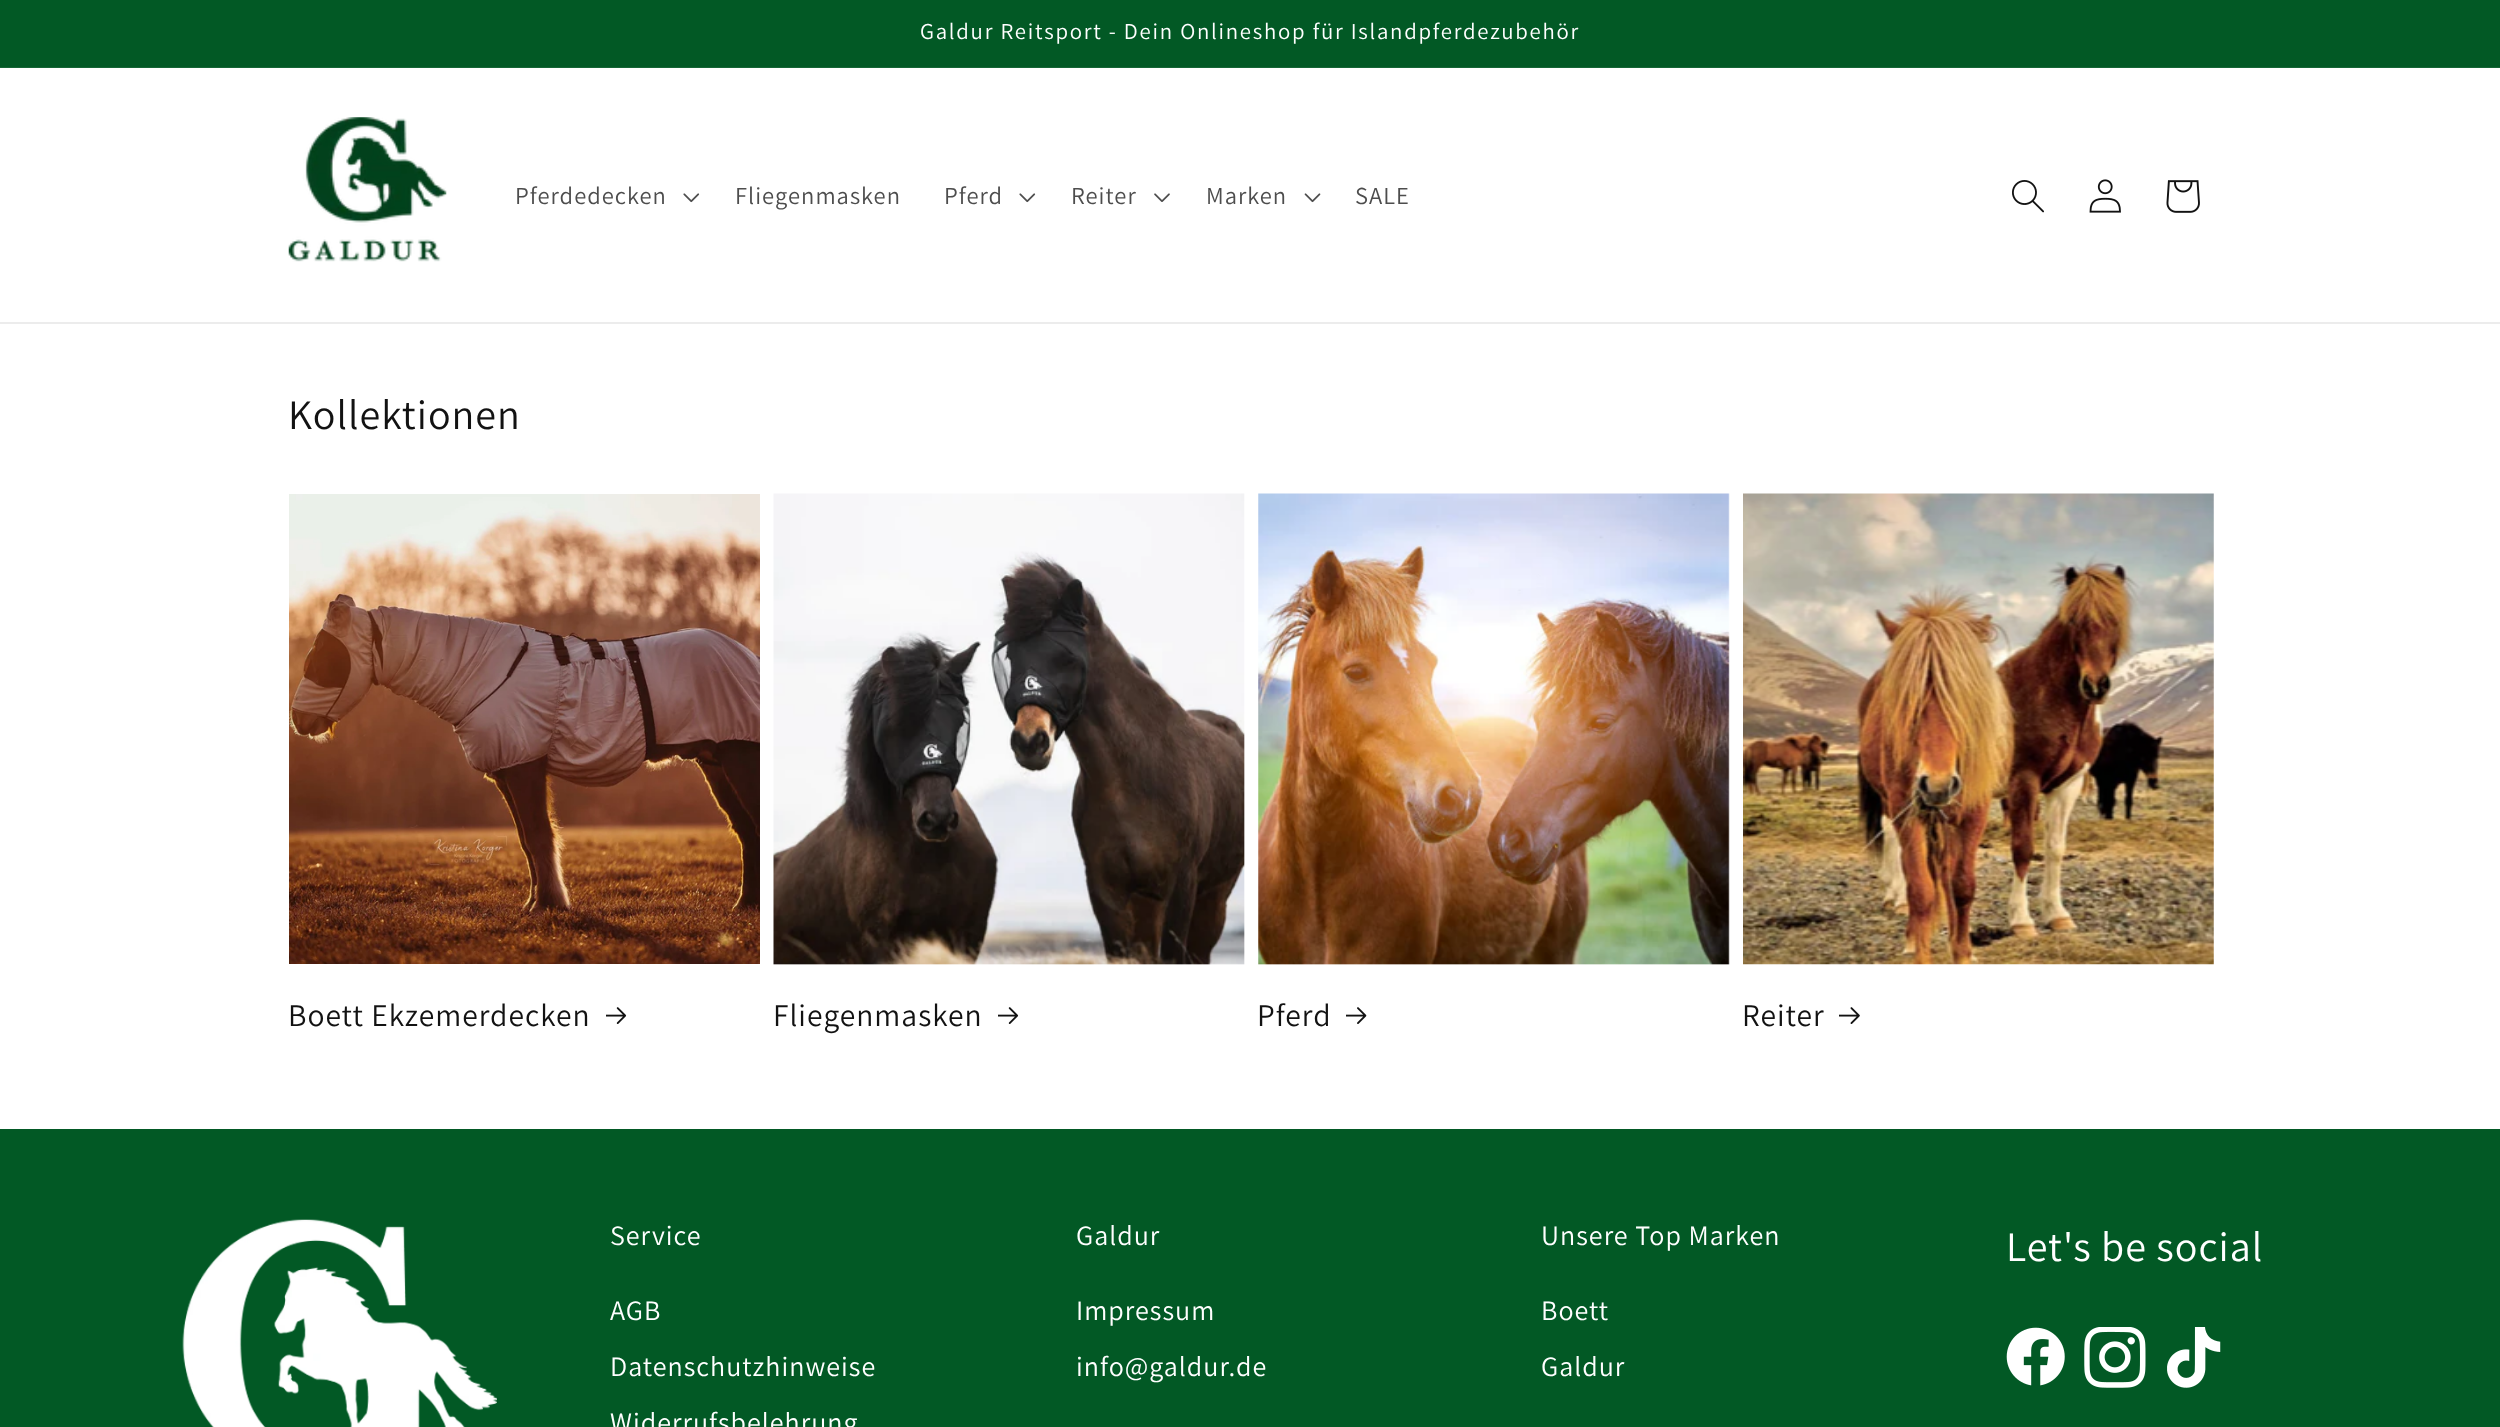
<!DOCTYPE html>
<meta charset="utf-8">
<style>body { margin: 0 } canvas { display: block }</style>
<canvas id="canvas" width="2500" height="1427"></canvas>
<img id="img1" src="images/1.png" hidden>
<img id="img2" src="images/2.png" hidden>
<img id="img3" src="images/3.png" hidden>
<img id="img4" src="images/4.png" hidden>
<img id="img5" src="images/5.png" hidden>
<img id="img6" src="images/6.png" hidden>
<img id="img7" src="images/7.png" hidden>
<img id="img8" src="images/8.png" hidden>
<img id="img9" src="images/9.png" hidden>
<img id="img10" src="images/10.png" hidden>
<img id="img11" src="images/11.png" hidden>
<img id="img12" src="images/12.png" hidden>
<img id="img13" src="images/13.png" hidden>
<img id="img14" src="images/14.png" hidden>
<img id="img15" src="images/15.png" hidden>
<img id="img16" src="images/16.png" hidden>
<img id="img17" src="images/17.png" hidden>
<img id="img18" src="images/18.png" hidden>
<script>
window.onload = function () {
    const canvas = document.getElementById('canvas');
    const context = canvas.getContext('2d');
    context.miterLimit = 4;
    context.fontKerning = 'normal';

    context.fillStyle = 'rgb(255, 255, 255)';
    context.fillRect(0, 0, 2500, 1427);
    context.fillStyle = 'rgb(2, 89, 37)';
    context.fillRect(0, 0, 2500, 67);
    context.fillStyle = 'rgb(22, 102, 54)';
    context.fillRect(0, 67, 2500, 1);
    context.fillStyle = 'rgb(236, 236, 236)';
    context.fillRect(0, 322, 2500, 2);
    context.drawImage(document.getElementById('img1'), 288, 117, 159, 145);
    context.drawImage(document.getElementById('img2'), 683, 193, 17, 10);
    context.drawImage(document.getElementById('img2'), 1019, 193, 17, 10);
    context.drawImage(document.getElementById('img3'), 1154, 193, 16, 9);
    context.drawImage(document.getElementById('img4'), 1304, 193, 17, 10);
    context.drawImage(document.getElementById('img5'), 2012, 180, 32, 33);
    context.drawImage(document.getElementById('img6'), 2089, 179, 32, 34);
    context.drawImage(document.getElementById('img7'), 2166, 180, 34, 33);
    context.drawImage(document.getElementById('img8'), 289, 494, 471, 470);
    context.drawImage(document.getElementById('img9'), 606, 1007, 21, 17);
    context.drawImage(document.getElementById('img10'), 773, 493, 472, 472);
    context.drawImage(document.getElementById('img9'), 998, 1007, 21, 17);
    context.drawImage(document.getElementById('img11'), 1258, 493, 472, 472);
    context.drawImage(document.getElementById('img12'), 1346, 1007, 21, 17);
    context.drawImage(document.getElementById('img13'), 1743, 493, 471, 472);
    context.drawImage(document.getElementById('img14'), 1839, 1007, 21, 17);
    context.fillStyle = 'rgb(2, 89, 37)';
    context.fillRect(0, 1129, 2500, 298);
    context.drawImage(document.getElementById('img15'), 182, 1219, 315, 208);
    context.drawImage(document.getElementById('img16'), 2006, 1327, 59, 59);
    context.drawImage(document.getElementById('img17'), 2084, 1327, 62, 61);
    context.drawImage(document.getElementById('img18'), 2167, 1327, 54, 61);
    context.letterSpacing = '1.75px';
    context.font = '22.75px Assistant';
    context.fillStyle = 'rgb(255, 255, 255)';
    context.fillText('Galdur Reitsport - Dein Onlineshop für Islandpferdezubehör', 920, 39);
    context.letterSpacing = '1px';
    context.font = '24.5px Assistant';
    context.fillStyle = 'rgb(77, 77, 77)';
    context.fillText('Pferdedecken', 515, 204);
    context.fillText('Fliegenmasken', 735, 204);
    context.fillText('Pferd', 944, 204);
    context.fillText('Reiter', 1071, 204);
    context.fillText('Marken', 1206, 204);
    context.fillText('SALE', 1355, 204);
    context.font = '42px Assistant';
    context.fillStyle = 'rgb(18, 18, 18)';
    context.fillText('Kollektionen', 288, 429);
    context.font = '31.5px Assistant';
    context.fillText('Boett Ekzemerdecken', 288, 1026);
    context.fillText('Fliegenmasken', 773, 1026);
    context.fillText('Pferd', 1257, 1026);
    context.fillText('Reiter', 1742, 1026);
    context.font = '28px Assistant';
    context.fillStyle = 'rgb(255, 255, 255)';
    context.fillText('Service', 610, 1245);
    context.fillText('AGB', 610, 1320);
    context.fillText('Datenschutzhinweise', 610, 1376);
    context.fillText('Widerrufsbelehrung', 610, 1432);
    context.fillText('Galdur', 1076, 1245);
    context.fillText('Impressum', 1076, 1320);
    context.fillText('info@galdur.de', 1076, 1376);
    context.fillText('Unsere Top Marken', 1541, 1245);
    context.fillText('Boett', 1541, 1320);
    context.fillText('Galdur', 1541, 1376);
    context.font = '42px Assistant';
    context.fillText('Let\'s be social', 2006, 1261);
};
</script>
